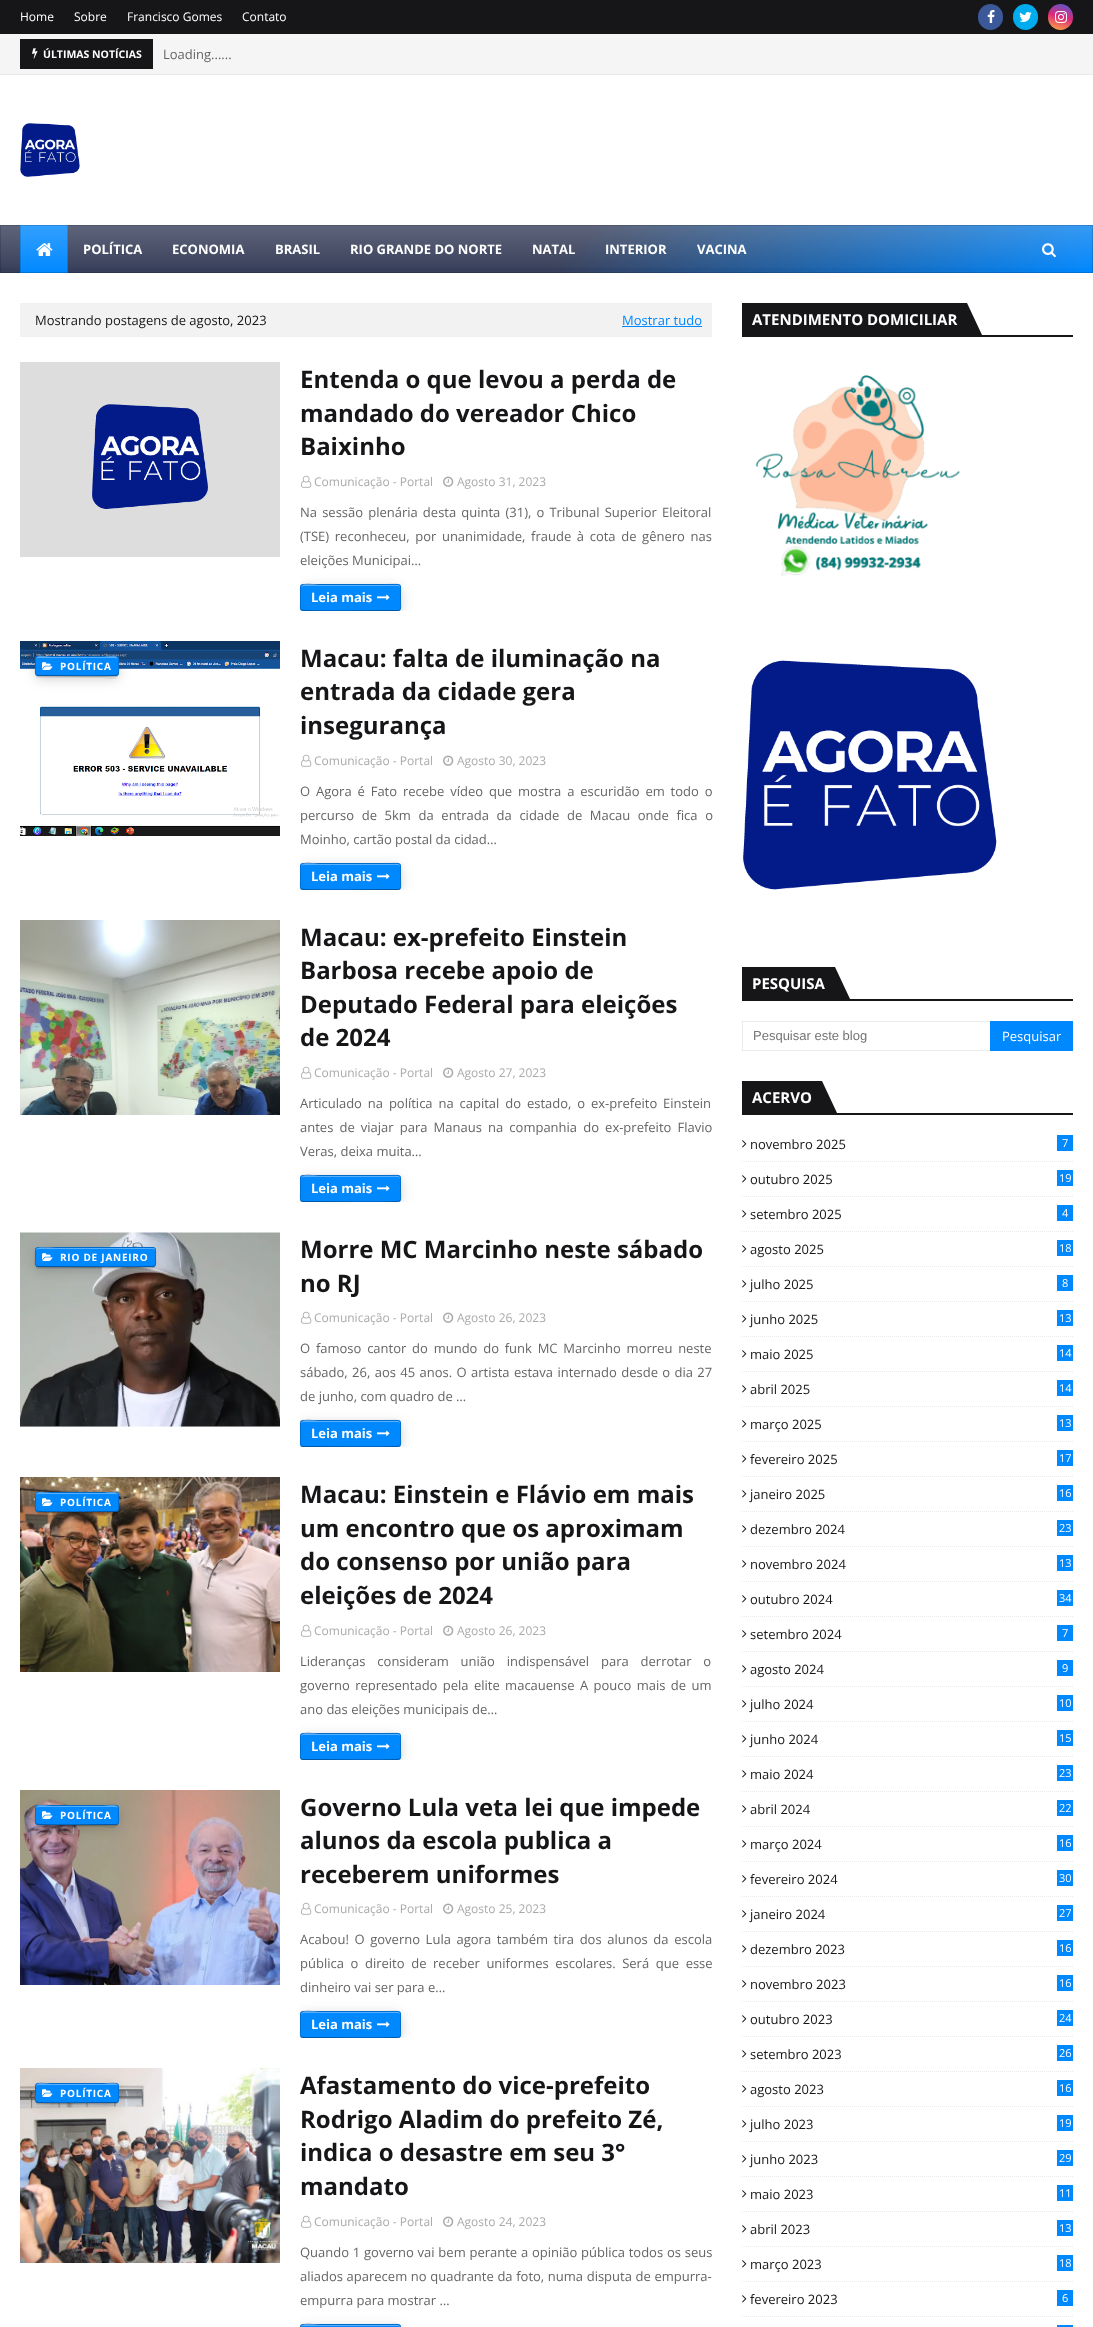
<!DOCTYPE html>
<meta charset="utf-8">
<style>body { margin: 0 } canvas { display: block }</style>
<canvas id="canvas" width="1093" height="2327"></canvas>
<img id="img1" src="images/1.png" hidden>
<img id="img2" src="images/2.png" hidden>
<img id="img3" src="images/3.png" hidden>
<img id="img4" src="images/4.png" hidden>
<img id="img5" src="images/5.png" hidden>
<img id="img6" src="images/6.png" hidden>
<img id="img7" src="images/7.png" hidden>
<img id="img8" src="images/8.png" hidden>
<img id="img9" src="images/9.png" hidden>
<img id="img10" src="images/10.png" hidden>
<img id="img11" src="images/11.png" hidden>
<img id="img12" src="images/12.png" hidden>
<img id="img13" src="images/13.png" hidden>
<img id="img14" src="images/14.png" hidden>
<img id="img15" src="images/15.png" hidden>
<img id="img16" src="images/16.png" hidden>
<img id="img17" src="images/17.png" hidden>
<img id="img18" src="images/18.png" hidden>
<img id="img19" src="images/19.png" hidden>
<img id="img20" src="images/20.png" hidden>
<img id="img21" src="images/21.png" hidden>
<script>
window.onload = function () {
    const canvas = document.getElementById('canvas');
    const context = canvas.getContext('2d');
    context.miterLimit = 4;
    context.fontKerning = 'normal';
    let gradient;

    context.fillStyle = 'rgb(255, 255, 255)';
    context.fillRect(0, 0, 1093, 2327);
    context.fillStyle = 'rgb(22, 22, 25)';
    context.fillRect(0, 0, 1093, 34);
    context.fillStyle = 'rgb(59, 89, 153)';
    context.beginPath();
    context.roundRect(978, 4, 25, 26, 12.5);
    context.fill();
    context.drawImage(document.getElementById('img1'), 987, 10, 8, 13);
    context.fillStyle = 'rgb(0, 172, 238)';
    context.beginPath();
    context.roundRect(1013, 4, 25, 26, 12.5);
    context.fill();
    context.drawImage(document.getElementById('img2'), 1019, 12, 13, 10);
    gradient = context.createLinearGradient(1056, 32, 1065, 1.7);
    gradient.addColorStop(0, 'rgb(255, 177, 61)');
    gradient.addColorStop(0.5, 'rgb(221, 39, 123)');
    gradient.addColorStop(1, 'rgb(77, 94, 212)');
    context.fillStyle = gradient;
    context.beginPath();
    context.roundRect(1048, 4, 25, 26, 12.5);
    context.fill();
    context.drawImage(document.getElementById('img3'), 1055, 11, 12, 12);
    context.fillStyle = 'rgb(245, 245, 245)';
    context.fillRect(0, 34, 1093, 40);
    context.fillStyle = 'rgb(233, 233, 233)';
    context.fillRect(0, 74, 1093, 1);
    context.fillStyle = 'rgb(22, 22, 25)';
    context.fillRect(20, 39, 133, 30);
    context.drawImage(document.getElementById('img4'), 32, 48, 6, 11);
    context.drawImage(document.getElementById('img5'), 20, 123, 60, 54);
    gradient = context.createLinearGradient(261, -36, 832, 534);
    gradient.addColorStop(0.52, 'rgb(55, 62, 89)');
    gradient.addColorStop(1, 'rgb(0, 136, 255)');
    context.fillStyle = gradient;
    context.fillRect(0, 225, 1093, 48);
    gradient = context.createLinearGradient(547, 225, 547, 273);
    gradient.addColorStop(0, 'rgba(255, 255, 255, 0.2)');
    gradient.addColorStop(1, 'rgba(255, 255, 255, 0)');
    context.fillStyle = gradient;
    context.fillRect(0, 225, 1093, 43);
    context.strokeStyle = 'rgba(0, 0, 0, 0.15)';
    context.strokeRect(0.5, 225.5, 1092, 47);
    gradient = context.createLinearGradient(44, 225, 44, 273);
    gradient.addColorStop(0, 'rgb(51, 160, 255)');
    gradient.addColorStop(1, 'rgb(0, 136, 255)');
    context.fillStyle = gradient;
    context.fillRect(20, 225, 48, 48);
    context.strokeRect(20.5, 225.5, 47, 47);
    context.drawImage(document.getElementById('img6'), 36, 243, 17, 13);
    context.drawImage(document.getElementById('img7'), 1042, 243, 14, 15);
    context.fillStyle = 'rgb(242, 242, 242)';
    context.fillRect(20, 303, 692, 34);
    context.fillStyle = 'rgb(0, 136, 255)';
    context.fillRect(622, 326, 80, 1);
    context.drawImage(document.getElementById('img8'), 20, 362, 260, 195);
    context.drawImage(document.getElementById('img9'), 301, 475, 11, 13);
    context.drawImage(document.getElementById('img10'), 443, 476, 11, 11);
    context.save();
    context.beginPath();
    context.rect(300, 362, 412, 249);
    context.clip();
    context.fillStyle = 'rgba(0, 0, 0, 0.21)';
    context.filter = 'blur(6.5px)';
    context.beginPath();
    context.roundRect(301, 588, 99, 25, 2);
    context.fill();
    context.filter = 'none';
    context.restore();
    context.save();
    context.beginPath();
    context.rect(300, 362, 412, 249);
    context.clip();
    context.fillStyle = 'rgb(202, 202, 202)';
    context.beginPath();
    context.moveTo(301, 610);
    context.bezierCurveTo(301, 611, 302, 612, 303, 612);
    context.lineTo(399, 612);
    context.lineTo(400, 610);
    context.lineTo(398, 611);
    context.lineTo(303, 611);
    context.closePath();
    context.fill();
    context.restore();
    context.beginPath();
    context.roundRect(300, 584, 101, 27, 3);
    context.fill();
    context.fillStyle = 'rgb(87, 176, 255)';
    context.beginPath();
    context.moveTo(303, 586);
    context.lineTo(398, 586);
    context.bezierCurveTo(399, 586, 400, 587, 400, 588);
    context.bezierCurveTo(400, 587, 400, 585, 398, 585);
    context.lineTo(319, 585);
    context.bezierCurveTo(317, 585, 301, 581, 301, 588);
    context.bezierCurveTo(301, 587, 302, 586, 303, 586);
    context.closePath();
    context.fill();
    context.save();
    context.beginPath();
    context.rect(300, 362, 412, 249);
    context.clip();
    context.beginPath();
    context.moveTo(400, 610);
    context.lineTo(398, 610.5);
    context.lineTo(382, 610.5);
    context.bezierCurveTo(374, 610.5, 303.5, 611.5, 301.5, 610);
    context.lineTo(301, 610);
    context.strokeStyle = 'rgba(0, 0, 0, 0.34)';
    context.stroke();
    context.restore();
    context.beginPath();
    context.moveTo(301, 610);
    context.bezierCurveTo(299.5, 608, 300.5, 603, 300.5, 601);
    context.bezierCurveTo(300.5, 580.5, 297, 584.5, 319, 584.5);
    context.lineTo(382, 584.5);
    context.bezierCurveTo(404, 584.5, 400.5, 580.5, 400.5, 601);
    context.bezierCurveTo(400.5, 603, 401.5, 608, 400, 610);
    context.strokeStyle = 'rgba(0, 0, 0, 0.21)';
    context.stroke();
    context.drawImage(document.getElementById('img11'), 377, 594, 13, 7);
    context.drawImage(document.getElementById('img12'), 20, 641, 260, 195);
    context.fillStyle = 'rgba(0, 0, 0, 0.21)';
    context.filter = 'blur(6.5px)';
    context.beginPath();
    context.roundRect(36, 660, 82, 18, 2);
    context.fill();
    context.filter = 'none';
    context.fillStyle = 'rgba(0, 0, 0, 0.08)';
    context.beginPath();
    context.moveTo(36, 675);
    context.bezierCurveTo(36, 677, 36, 678, 38, 678);
    context.lineTo(103, 678);
    context.bezierCurveTo(104, 678, 118, 682, 118, 675);
    context.lineTo(116, 676);
    context.lineTo(38, 676);
    context.closePath();
    context.fill();
    context.fillStyle = 'rgba(0, 0, 0, 0.13)';
    context.beginPath();
    context.moveTo(36, 675);
    context.bezierCurveTo(36, 676, 37, 677, 38, 677);
    context.lineTo(117, 677);
    context.lineTo(118, 675);
    context.lineTo(116, 676);
    context.lineTo(38, 676);
    context.closePath();
    context.fill();
    context.fillStyle = 'rgb(0, 136, 255)';
    context.beginPath();
    context.roundRect(35, 656, 84, 20, 3);
    context.fill();
    context.fillStyle = 'rgb(87, 176, 255)';
    context.beginPath();
    context.moveTo(38, 658);
    context.lineTo(116, 658);
    context.bezierCurveTo(117, 658, 118, 659, 118, 660);
    context.bezierCurveTo(118, 653, 106, 657, 103, 657);
    context.lineTo(51, 657);
    context.bezierCurveTo(48, 657, 36, 653, 36, 660);
    context.bezierCurveTo(36, 659, 37, 658, 38, 658);
    context.closePath();
    context.fill();
    context.beginPath();
    context.moveTo(118, 675);
    context.lineTo(117.5, 675);
    context.bezierCurveTo(115.5, 676.5, 58, 675.5, 51, 675.5);
    context.lineTo(38, 675.5);
    context.lineTo(36, 675);
    context.strokeStyle = 'rgba(0, 0, 0, 0.34)';
    context.stroke();
    context.beginPath();
    context.moveTo(36, 675);
    context.bezierCurveTo(34.5, 673, 35.5, 668, 35.5, 666);
    context.bezierCurveTo(35.5, 653, 35.5, 656.5, 51, 656.5);
    context.lineTo(103, 656.5);
    context.bezierCurveTo(118.5, 656.5, 118.5, 653, 118.5, 666);
    context.bezierCurveTo(118.5, 668, 119.5, 673, 118, 675);
    context.strokeStyle = 'rgba(0, 0, 0, 0.21)';
    context.stroke();
    context.drawImage(document.getElementById('img13'), 42, 662, 11, 8);
    context.drawImage(document.getElementById('img9'), 301, 754, 11, 13);
    context.drawImage(document.getElementById('img10'), 443, 755, 11, 11);
    context.save();
    context.beginPath();
    context.rect(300, 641, 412, 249);
    context.clip();
    context.fillStyle = 'rgba(0, 0, 0, 0.21)';
    context.filter = 'blur(6.5px)';
    context.beginPath();
    context.roundRect(301, 867, 99, 25, 2);
    context.fill();
    context.filter = 'none';
    context.restore();
    context.save();
    context.beginPath();
    context.rect(300, 641, 412, 249);
    context.clip();
    context.fillStyle = 'rgb(202, 202, 202)';
    context.beginPath();
    context.moveTo(301, 889);
    context.bezierCurveTo(301, 890, 302, 891, 303, 891);
    context.lineTo(399, 891);
    context.lineTo(400, 889);
    context.lineTo(398, 890);
    context.lineTo(303, 890);
    context.closePath();
    context.fill();
    context.restore();
    context.fillStyle = 'rgb(0, 136, 255)';
    context.beginPath();
    context.roundRect(300, 863, 101, 27, 3);
    context.fill();
    context.fillStyle = 'rgb(87, 176, 255)';
    context.beginPath();
    context.moveTo(303, 865);
    context.lineTo(398, 865);
    context.bezierCurveTo(399, 865, 400, 866, 400, 867);
    context.bezierCurveTo(400, 866, 400, 864, 398, 864);
    context.lineTo(319, 864);
    context.bezierCurveTo(317, 864, 301, 860, 301, 867);
    context.bezierCurveTo(301, 866, 302, 865, 303, 865);
    context.closePath();
    context.fill();
    context.save();
    context.beginPath();
    context.rect(300, 641, 412, 249);
    context.clip();
    context.beginPath();
    context.moveTo(400, 889);
    context.lineTo(398, 889.5);
    context.lineTo(382, 889.5);
    context.bezierCurveTo(374, 889.5, 303.5, 890.5, 301.5, 889);
    context.lineTo(301, 889);
    context.strokeStyle = 'rgba(0, 0, 0, 0.34)';
    context.stroke();
    context.restore();
    context.beginPath();
    context.moveTo(301, 889);
    context.bezierCurveTo(299.5, 887, 300.5, 882, 300.5, 880);
    context.bezierCurveTo(300.5, 859.5, 297, 863.5, 319, 863.5);
    context.lineTo(382, 863.5);
    context.bezierCurveTo(404, 863.5, 400.5, 859.5, 400.5, 880);
    context.bezierCurveTo(400.5, 882, 401.5, 887, 400, 889);
    context.stroke();
    context.drawImage(document.getElementById('img11'), 377, 873, 13, 7);
    context.drawImage(document.getElementById('img14'), 20, 920, 260, 195);
    context.drawImage(document.getElementById('img9'), 301, 1066, 11, 13);
    context.drawImage(document.getElementById('img10'), 443, 1067, 11, 11);
    context.save();
    context.beginPath();
    context.rect(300, 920, 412, 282);
    context.clip();
    context.fillStyle = 'rgba(0, 0, 0, 0.21)';
    context.filter = 'blur(6.5px)';
    context.beginPath();
    context.roundRect(301, 1179, 99, 25, 2);
    context.fill();
    context.filter = 'none';
    context.restore();
    context.save();
    context.beginPath();
    context.rect(300, 920, 412, 282);
    context.clip();
    context.fillStyle = 'rgb(202, 202, 202)';
    context.beginPath();
    context.moveTo(301, 1201);
    context.bezierCurveTo(301, 1202, 302, 1203, 303, 1203);
    context.lineTo(399, 1203);
    context.lineTo(400, 1201);
    context.lineTo(398, 1202);
    context.lineTo(303, 1202);
    context.closePath();
    context.fill();
    context.restore();
    context.fillStyle = 'rgb(0, 136, 255)';
    context.beginPath();
    context.roundRect(300, 1175, 101, 27, 3);
    context.fill();
    context.fillStyle = 'rgb(87, 176, 255)';
    context.beginPath();
    context.moveTo(303, 1177);
    context.lineTo(398, 1177);
    context.bezierCurveTo(399, 1177, 400, 1178, 400, 1179);
    context.bezierCurveTo(400, 1178, 400, 1176, 398, 1176);
    context.lineTo(319, 1176);
    context.bezierCurveTo(317, 1176, 301, 1172, 301, 1179);
    context.bezierCurveTo(301, 1178, 302, 1177, 303, 1177);
    context.closePath();
    context.fill();
    context.save();
    context.beginPath();
    context.rect(300, 920, 412, 282);
    context.clip();
    context.beginPath();
    context.moveTo(400, 1201);
    context.lineTo(399.5, 1201);
    context.bezierCurveTo(397.5, 1202.5, 327, 1201.5, 319, 1201.5);
    context.lineTo(303, 1201.5);
    context.lineTo(301, 1201);
    context.strokeStyle = 'rgba(0, 0, 0, 0.34)';
    context.stroke();
    context.restore();
    context.beginPath();
    context.moveTo(301, 1201);
    context.bezierCurveTo(299.5, 1199, 300.5, 1194, 300.5, 1192);
    context.bezierCurveTo(300.5, 1171.5, 297, 1175.5, 319, 1175.5);
    context.lineTo(382, 1175.5);
    context.bezierCurveTo(404, 1175.5, 400.5, 1171.5, 400.5, 1192);
    context.bezierCurveTo(400.5, 1194, 401.5, 1199, 400, 1201);
    context.stroke();
    context.drawImage(document.getElementById('img11'), 377, 1185, 13, 7);
    context.drawImage(document.getElementById('img15'), 20, 1232, 260, 195);
    context.fillStyle = 'rgba(0, 0, 0, 0.21)';
    context.filter = 'blur(6.5px)';
    context.beginPath();
    context.roundRect(36, 1251, 119, 18, 2);
    context.fill();
    context.filter = 'none';
    context.fillStyle = 'rgba(0, 0, 0, 0.08)';
    context.beginPath();
    context.moveTo(36, 1266);
    context.bezierCurveTo(36, 1267, 36, 1268, 37, 1269);
    context.lineTo(134, 1269);
    context.bezierCurveTo(138, 1269, 155, 1273, 155, 1266);
    context.lineTo(153, 1267);
    context.lineTo(57, 1267);
    context.lineTo(38, 1267);
    context.closePath();
    context.fill();
    context.fillStyle = 'rgba(0, 0, 0, 0.13)';
    context.beginPath();
    context.moveTo(36, 1266);
    context.bezierCurveTo(36, 1267, 37, 1268, 38, 1268);
    context.lineTo(153, 1268);
    context.bezierCurveTo(154, 1268, 155, 1267, 155, 1266);
    context.lineTo(153, 1267);
    context.lineTo(38, 1267);
    context.closePath();
    context.fill();
    context.fillStyle = 'rgb(0, 136, 255)';
    context.beginPath();
    context.roundRect(35, 1247, 121, 20, 3);
    context.fill();
    context.fillStyle = 'rgb(87, 176, 255)';
    context.beginPath();
    context.moveTo(38, 1249);
    context.lineTo(153, 1249);
    context.bezierCurveTo(154, 1249, 155, 1250, 155, 1251);
    context.bezierCurveTo(155, 1250, 155, 1249, 154, 1248);
    context.lineTo(57, 1248);
    context.bezierCurveTo(51, 1248, 36, 1244, 36, 1251);
    context.bezierCurveTo(36, 1250, 37, 1249, 38, 1249);
    context.closePath();
    context.fill();
    context.beginPath();
    context.moveTo(155, 1266);
    context.lineTo(154.5, 1266);
    context.bezierCurveTo(152.5, 1267.5, 67, 1266.5, 57, 1266.5);
    context.lineTo(38, 1266.5);
    context.lineTo(36, 1266);
    context.strokeStyle = 'rgba(0, 0, 0, 0.34)';
    context.stroke();
    context.beginPath();
    context.moveTo(36, 1266);
    context.bezierCurveTo(34.5, 1264, 35.5, 1259, 35.5, 1257);
    context.bezierCurveTo(35.5, 1255, 34, 1247.5, 38, 1247.5);
    context.lineTo(153, 1247.5);
    context.bezierCurveTo(157, 1247.5, 155.5, 1255, 155.5, 1257);
    context.bezierCurveTo(155.5, 1259, 156.5, 1264, 155, 1266);
    context.strokeStyle = 'rgba(0, 0, 0, 0.21)';
    context.stroke();
    context.drawImage(document.getElementById('img13'), 42, 1253, 11, 8);
    context.drawImage(document.getElementById('img9'), 301, 1311, 11, 13);
    context.drawImage(document.getElementById('img10'), 443, 1312, 11, 11);
    context.save();
    context.beginPath();
    context.rect(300, 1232, 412, 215);
    context.clip();
    context.fillStyle = 'rgba(0, 0, 0, 0.21)';
    context.filter = 'blur(6.5px)';
    context.beginPath();
    context.roundRect(301, 1424, 99, 25, 2);
    context.fill();
    context.filter = 'none';
    context.restore();
    context.save();
    context.beginPath();
    context.rect(300, 1232, 412, 215);
    context.clip();
    context.fillStyle = 'rgb(202, 202, 202)';
    context.beginPath();
    context.moveTo(301, 1446);
    context.bezierCurveTo(301, 1447, 302, 1448, 303, 1448);
    context.lineTo(399, 1448);
    context.lineTo(400, 1446);
    context.lineTo(398, 1447);
    context.lineTo(303, 1447);
    context.closePath();
    context.fill();
    context.restore();
    context.fillStyle = 'rgb(0, 136, 255)';
    context.beginPath();
    context.roundRect(300, 1420, 101, 27, 3);
    context.fill();
    context.fillStyle = 'rgb(87, 176, 255)';
    context.beginPath();
    context.moveTo(303, 1422);
    context.lineTo(398, 1422);
    context.bezierCurveTo(399, 1422, 400, 1423, 400, 1424);
    context.bezierCurveTo(400, 1423, 400, 1421, 398, 1421);
    context.lineTo(319, 1421);
    context.bezierCurveTo(317, 1421, 301, 1417, 301, 1424);
    context.bezierCurveTo(301, 1423, 302, 1422, 303, 1422);
    context.closePath();
    context.fill();
    context.save();
    context.beginPath();
    context.rect(300, 1232, 412, 215);
    context.clip();
    context.beginPath();
    context.moveTo(400, 1446);
    context.lineTo(399.5, 1446);
    context.bezierCurveTo(397.5, 1447.5, 327, 1446.5, 319, 1446.5);
    context.lineTo(303, 1446.5);
    context.lineTo(301, 1446);
    context.strokeStyle = 'rgba(0, 0, 0, 0.34)';
    context.stroke();
    context.restore();
    context.beginPath();
    context.moveTo(301, 1446);
    context.bezierCurveTo(299.5, 1444, 300.5, 1439, 300.5, 1437);
    context.bezierCurveTo(300.5, 1416.5, 297, 1420.5, 319, 1420.5);
    context.lineTo(382, 1420.5);
    context.bezierCurveTo(404, 1420.5, 400.5, 1416.5, 400.5, 1437);
    context.bezierCurveTo(400.5, 1439, 401.5, 1444, 400, 1446);
    context.stroke();
    context.drawImage(document.getElementById('img11'), 377, 1430, 13, 7);
    context.drawImage(document.getElementById('img16'), 20, 1477, 260, 195);
    context.fillStyle = 'rgba(0, 0, 0, 0.21)';
    context.filter = 'blur(6.5px)';
    context.beginPath();
    context.roundRect(36, 1496, 82, 18, 2);
    context.fill();
    context.filter = 'none';
    context.fillStyle = 'rgba(0, 0, 0, 0.08)';
    context.beginPath();
    context.moveTo(36, 1511);
    context.bezierCurveTo(36, 1513, 36, 1514, 38, 1514);
    context.lineTo(103, 1514);
    context.bezierCurveTo(104, 1514, 118, 1518, 118, 1511);
    context.lineTo(116, 1512);
    context.lineTo(38, 1512);
    context.closePath();
    context.fill();
    context.fillStyle = 'rgba(0, 0, 0, 0.13)';
    context.beginPath();
    context.moveTo(36, 1511);
    context.lineTo(37, 1513);
    context.lineTo(116, 1513);
    context.bezierCurveTo(117, 1513, 118, 1512, 118, 1511);
    context.lineTo(116, 1512);
    context.lineTo(38, 1512);
    context.closePath();
    context.fill();
    context.fillStyle = 'rgb(0, 136, 255)';
    context.beginPath();
    context.roundRect(35, 1492, 84, 20, 3);
    context.fill();
    context.fillStyle = 'rgb(87, 176, 255)';
    context.beginPath();
    context.moveTo(38, 1494);
    context.lineTo(116, 1494);
    context.bezierCurveTo(117, 1494, 118, 1495, 118, 1496);
    context.bezierCurveTo(118, 1489, 106, 1493, 103, 1493);
    context.lineTo(51, 1493);
    context.bezierCurveTo(48, 1493, 36, 1489, 36, 1496);
    context.bezierCurveTo(36, 1495, 37, 1494, 38, 1494);
    context.closePath();
    context.fill();
    context.beginPath();
    context.moveTo(118, 1511);
    context.lineTo(116, 1511.5);
    context.lineTo(103, 1511.5);
    context.bezierCurveTo(96, 1511.5, 38.5, 1512.5, 36.5, 1511);
    context.lineTo(36, 1511);
    context.strokeStyle = 'rgba(0, 0, 0, 0.34)';
    context.stroke();
    context.beginPath();
    context.moveTo(36, 1511);
    context.bezierCurveTo(34.5, 1509, 35.5, 1504, 35.5, 1502);
    context.bezierCurveTo(35.5, 1489, 35.5, 1492.5, 51, 1492.5);
    context.lineTo(103, 1492.5);
    context.bezierCurveTo(118.5, 1492.5, 118.5, 1489, 118.5, 1502);
    context.bezierCurveTo(118.5, 1504, 119.5, 1509, 118, 1511);
    context.strokeStyle = 'rgba(0, 0, 0, 0.21)';
    context.stroke();
    context.drawImage(document.getElementById('img13'), 42, 1498, 11, 8);
    context.drawImage(document.getElementById('img9'), 301, 1624, 11, 13);
    context.drawImage(document.getElementById('img10'), 443, 1625, 11, 11);
    context.save();
    context.beginPath();
    context.rect(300, 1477, 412, 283);
    context.clip();
    context.fillStyle = 'rgba(0, 0, 0, 0.21)';
    context.filter = 'blur(6.5px)';
    context.beginPath();
    context.roundRect(301, 1737, 99, 25, 2);
    context.fill();
    context.filter = 'none';
    context.restore();
    context.save();
    context.beginPath();
    context.rect(300, 1477, 412, 283);
    context.clip();
    context.fillStyle = 'rgb(202, 202, 202)';
    context.beginPath();
    context.moveTo(301, 1759);
    context.bezierCurveTo(301, 1760, 302, 1761, 303, 1761);
    context.lineTo(399, 1761);
    context.lineTo(400, 1759);
    context.lineTo(398, 1760);
    context.lineTo(303, 1760);
    context.closePath();
    context.fill();
    context.restore();
    context.fillStyle = 'rgb(0, 136, 255)';
    context.beginPath();
    context.roundRect(300, 1733, 101, 27, 3);
    context.fill();
    context.fillStyle = 'rgb(87, 176, 255)';
    context.beginPath();
    context.moveTo(303, 1735);
    context.lineTo(398, 1735);
    context.bezierCurveTo(399, 1735, 400, 1736, 400, 1737);
    context.bezierCurveTo(400, 1736, 400, 1734, 398, 1734);
    context.lineTo(319, 1734);
    context.bezierCurveTo(317, 1734, 301, 1730, 301, 1737);
    context.bezierCurveTo(301, 1736, 302, 1735, 303, 1735);
    context.closePath();
    context.fill();
    context.save();
    context.beginPath();
    context.rect(300, 1477, 412, 283);
    context.clip();
    context.beginPath();
    context.moveTo(400, 1759);
    context.lineTo(399.5, 1759);
    context.bezierCurveTo(397.5, 1760.5, 327, 1759.5, 319, 1759.5);
    context.lineTo(303, 1759.5);
    context.lineTo(301, 1759);
    context.strokeStyle = 'rgba(0, 0, 0, 0.34)';
    context.stroke();
    context.restore();
    context.beginPath();
    context.moveTo(301, 1759);
    context.bezierCurveTo(299.5, 1757, 300.5, 1752, 300.5, 1750);
    context.bezierCurveTo(300.5, 1729.5, 297, 1733.5, 319, 1733.5);
    context.lineTo(382, 1733.5);
    context.bezierCurveTo(404, 1733.5, 400.5, 1729.5, 400.5, 1750);
    context.bezierCurveTo(400.5, 1752, 401.5, 1757, 400, 1759);
    context.stroke();
    context.drawImage(document.getElementById('img11'), 377, 1743, 13, 7);
    context.drawImage(document.getElementById('img17'), 20, 1790, 260, 195);
    context.fillStyle = 'rgba(0, 0, 0, 0.21)';
    context.filter = 'blur(6.5px)';
    context.beginPath();
    context.roundRect(36, 1809, 82, 18, 2);
    context.fill();
    context.filter = 'none';
    context.fillStyle = 'rgba(0, 0, 0, 0.08)';
    context.beginPath();
    context.moveTo(36, 1824);
    context.bezierCurveTo(36, 1826, 36, 1827, 38, 1827);
    context.lineTo(103, 1827);
    context.bezierCurveTo(104, 1827, 118, 1831, 118, 1824);
    context.lineTo(116, 1825);
    context.lineTo(38, 1825);
    context.closePath();
    context.fill();
    context.fillStyle = 'rgba(0, 0, 0, 0.13)';
    context.beginPath();
    context.moveTo(36, 1824);
    context.lineTo(37, 1826);
    context.lineTo(116, 1826);
    context.bezierCurveTo(117, 1826, 118, 1825, 118, 1824);
    context.lineTo(116, 1825);
    context.lineTo(38, 1825);
    context.closePath();
    context.fill();
    context.fillStyle = 'rgb(0, 136, 255)';
    context.beginPath();
    context.roundRect(35, 1805, 84, 20, 3);
    context.fill();
    context.fillStyle = 'rgb(87, 176, 255)';
    context.beginPath();
    context.moveTo(38, 1807);
    context.lineTo(116, 1807);
    context.bezierCurveTo(117, 1807, 118, 1808, 118, 1809);
    context.bezierCurveTo(118, 1802, 106, 1806, 103, 1806);
    context.lineTo(51, 1806);
    context.bezierCurveTo(48, 1806, 36, 1802, 36, 1809);
    context.bezierCurveTo(36, 1808, 37, 1807, 38, 1807);
    context.closePath();
    context.fill();
    context.beginPath();
    context.moveTo(118, 1824);
    context.lineTo(116, 1824.5);
    context.lineTo(103, 1824.5);
    context.bezierCurveTo(96, 1824.5, 38.5, 1825.5, 36.5, 1824);
    context.lineTo(36, 1824);
    context.strokeStyle = 'rgba(0, 0, 0, 0.34)';
    context.stroke();
    context.beginPath();
    context.moveTo(36, 1824);
    context.bezierCurveTo(34.5, 1822, 35.5, 1817, 35.5, 1815);
    context.bezierCurveTo(35.5, 1802, 35.5, 1805.5, 51, 1805.5);
    context.lineTo(103, 1805.5);
    context.bezierCurveTo(118.5, 1805.5, 118.5, 1802, 118.5, 1815);
    context.bezierCurveTo(118.5, 1817, 119.5, 1822, 118, 1824);
    context.strokeStyle = 'rgba(0, 0, 0, 0.21)';
    context.stroke();
    context.drawImage(document.getElementById('img13'), 42, 1811, 11, 8);
    context.drawImage(document.getElementById('img9'), 301, 1902, 11, 13);
    context.drawImage(document.getElementById('img10'), 443, 1903, 11, 11);
    context.save();
    context.beginPath();
    context.rect(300, 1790, 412, 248);
    context.clip();
    context.fillStyle = 'rgba(0, 0, 0, 0.21)';
    context.filter = 'blur(6.5px)';
    context.beginPath();
    context.roundRect(301, 2015, 99, 25, 2);
    context.fill();
    context.filter = 'none';
    context.restore();
    context.save();
    context.beginPath();
    context.rect(300, 1790, 412, 248);
    context.clip();
    context.fillStyle = 'rgb(202, 202, 202)';
    context.beginPath();
    context.moveTo(301, 2037);
    context.bezierCurveTo(301, 2038, 302, 2039, 303, 2039);
    context.lineTo(399, 2039);
    context.lineTo(400, 2037);
    context.lineTo(398, 2038);
    context.lineTo(303, 2038);
    context.closePath();
    context.fill();
    context.restore();
    context.fillStyle = 'rgb(0, 136, 255)';
    context.beginPath();
    context.roundRect(300, 2011, 101, 27, 3);
    context.fill();
    context.fillStyle = 'rgb(87, 176, 255)';
    context.beginPath();
    context.moveTo(303, 2013);
    context.lineTo(398, 2013);
    context.bezierCurveTo(399, 2013, 400, 2014, 400, 2015);
    context.bezierCurveTo(400, 2014, 400, 2012, 398, 2012);
    context.lineTo(319, 2012);
    context.bezierCurveTo(317, 2012, 301, 2008, 301, 2015);
    context.bezierCurveTo(301, 2014, 302, 2013, 303, 2013);
    context.closePath();
    context.fill();
    context.save();
    context.beginPath();
    context.rect(300, 1790, 412, 248);
    context.clip();
    context.beginPath();
    context.moveTo(400, 2037);
    context.lineTo(399.5, 2037);
    context.bezierCurveTo(397.5, 2038.5, 327, 2037.5, 319, 2037.5);
    context.lineTo(303, 2037.5);
    context.lineTo(301, 2037);
    context.strokeStyle = 'rgba(0, 0, 0, 0.34)';
    context.stroke();
    context.restore();
    context.beginPath();
    context.moveTo(301, 2037);
    context.bezierCurveTo(299.5, 2035, 300.5, 2030, 300.5, 2028);
    context.bezierCurveTo(300.5, 2007.5, 297, 2011.5, 319, 2011.5);
    context.lineTo(382, 2011.5);
    context.bezierCurveTo(404, 2011.5, 400.5, 2007.5, 400.5, 2028);
    context.bezierCurveTo(400.5, 2030, 401.5, 2035, 400, 2037);
    context.stroke();
    context.drawImage(document.getElementById('img11'), 377, 2021, 13, 7);
    context.drawImage(document.getElementById('img18'), 20, 2068, 260, 195);
    context.fillStyle = 'rgba(0, 0, 0, 0.21)';
    context.filter = 'blur(6.5px)';
    context.beginPath();
    context.roundRect(36, 2087, 82, 18, 2);
    context.fill();
    context.filter = 'none';
    context.fillStyle = 'rgba(0, 0, 0, 0.08)';
    context.beginPath();
    context.moveTo(36, 2102);
    context.bezierCurveTo(36, 2104, 36, 2105, 38, 2105);
    context.lineTo(103, 2105);
    context.bezierCurveTo(104, 2105, 118, 2109, 118, 2102);
    context.lineTo(116, 2103);
    context.lineTo(38, 2103);
    context.closePath();
    context.fill();
    context.fillStyle = 'rgba(0, 0, 0, 0.13)';
    context.beginPath();
    context.moveTo(36, 2102);
    context.bezierCurveTo(36, 2103, 37, 2104, 38, 2104);
    context.lineTo(117, 2104);
    context.lineTo(118, 2102);
    context.lineTo(116, 2103);
    context.lineTo(38, 2103);
    context.closePath();
    context.fill();
    context.fillStyle = 'rgb(0, 136, 255)';
    context.beginPath();
    context.roundRect(35, 2083, 84, 20, 3);
    context.fill();
    context.fillStyle = 'rgb(87, 176, 255)';
    context.beginPath();
    context.moveTo(38, 2085);
    context.lineTo(116, 2085);
    context.bezierCurveTo(117, 2085, 118, 2086, 118, 2087);
    context.bezierCurveTo(118, 2080, 106, 2084, 103, 2084);
    context.lineTo(51, 2084);
    context.bezierCurveTo(48, 2084, 36, 2080, 36, 2087);
    context.bezierCurveTo(36, 2086, 37, 2085, 38, 2085);
    context.closePath();
    context.fill();
    context.beginPath();
    context.moveTo(118, 2102);
    context.lineTo(116, 2102.5);
    context.lineTo(103, 2102.5);
    context.bezierCurveTo(96, 2102.5, 38.5, 2103.5, 36.5, 2102);
    context.lineTo(36, 2102);
    context.strokeStyle = 'rgba(0, 0, 0, 0.34)';
    context.stroke();
    context.beginPath();
    context.moveTo(36, 2102);
    context.bezierCurveTo(34.5, 2100, 35.5, 2095, 35.5, 2093);
    context.bezierCurveTo(35.5, 2080, 35.5, 2083.5, 51, 2083.5);
    context.lineTo(103, 2083.5);
    context.bezierCurveTo(118.5, 2083.5, 118.5, 2080, 118.5, 2093);
    context.bezierCurveTo(118.5, 2095, 119.5, 2100, 118, 2102);
    context.strokeStyle = 'rgba(0, 0, 0, 0.21)';
    context.stroke();
    context.drawImage(document.getElementById('img13'), 42, 2089, 11, 8);
    context.drawImage(document.getElementById('img9'), 301, 2215, 11, 13);
    context.drawImage(document.getElementById('img10'), 443, 2216, 11, 11);
    context.save();
    context.beginPath();
    context.rect(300, 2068, 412, 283);
    context.clip();
    context.fillStyle = 'rgba(0, 0, 0, 0.21)';
    context.filter = 'blur(6.5px)';
    context.beginPath();
    context.roundRect(301, 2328, 99, 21, 2);
    context.fill();
    context.filter = 'none';
    context.restore();
    context.fillStyle = 'rgb(0, 136, 255)';
    context.beginPath();
    context.roundRect(300, 2324, 101, 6, 3);
    context.fill();
    context.fillStyle = 'rgb(87, 176, 255)';
    context.beginPath();
    context.moveTo(303, 2326);
    context.lineTo(398, 2326);
    context.bezierCurveTo(399, 2326, 400, 2327, 400, 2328);
    context.bezierCurveTo(400, 2327, 400, 2325, 398, 2325);
    context.lineTo(319, 2325);
    context.bezierCurveTo(317, 2325, 301, 2321, 301, 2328);
    context.bezierCurveTo(301, 2327, 302, 2326, 303, 2326);
    context.closePath();
    context.fill();
    context.beginPath();
    context.moveTo(301, 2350);
    context.bezierCurveTo(299.5, 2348, 300.5, 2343, 300.5, 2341);
    context.bezierCurveTo(300.5, 2320.5, 297, 2324.5, 319, 2324.5);
    context.lineTo(382, 2324.5);
    context.bezierCurveTo(404, 2324.5, 400.5, 2320.5, 400.5, 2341);
    context.bezierCurveTo(400.5, 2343, 401.5, 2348, 400, 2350);
    context.stroke();
    context.fillStyle = 'rgb(22, 22, 25)';
    context.fillRect(742, 335, 331, 2);
    context.fillRect(742, 303, 225, 32);
    context.beginPath();
    context.moveTo(967, 335);
    context.lineTo(967, 303);
    context.lineTo(982, 335);
    context.closePath();
    context.fill();
    context.drawImage(document.getElementById('img19'), 755, 375, 205, 201);
    context.drawImage(document.getElementById('img20'), 743, 660, 254, 230);
    context.fillRect(742, 999, 331, 2);
    context.fillRect(742, 967, 93, 32);
    context.beginPath();
    context.moveTo(835, 999);
    context.lineTo(835, 967);
    context.lineTo(850, 999);
    context.closePath();
    context.fill();
    context.fillStyle = 'rgb(234, 234, 234)';
    context.fillRect(742, 1021, 248, 1);
    context.fillRect(742, 1050, 248, 1);
    context.fillRect(742, 1021, 1, 30);
    context.fillStyle = 'rgb(0, 136, 255)';
    context.fillRect(990, 1021, 83, 30);
    context.fillStyle = 'rgb(22, 22, 25)';
    context.fillRect(742, 1113, 331, 2);
    context.fillRect(742, 1081, 80, 32);
    context.beginPath();
    context.moveTo(822, 1113);
    context.lineTo(822, 1081);
    context.lineTo(837, 1113);
    context.closePath();
    context.fill();
    context.beginPath();
    context.moveTo(742, 1161.5);
    context.lineTo(1073, 1161.5);
    context.strokeStyle = 'rgb(234, 234, 234)';
    context.setLineDash([1, 1]);
    context.stroke();
    context.drawImage(document.getElementById('img21'), 742, 1140, 5, 8);
    context.fillStyle = 'rgb(0, 136, 255)';
    context.fillRect(1057, 1135, 16, 16);
    context.beginPath();
    context.moveTo(742, 1196.5);
    context.lineTo(1073, 1196.5);
    context.stroke();
    context.drawImage(document.getElementById('img21'), 742, 1175, 5, 8);
    context.fillRect(1057, 1170, 16, 16);
    context.beginPath();
    context.moveTo(742, 1231.5);
    context.lineTo(1073, 1231.5);
    context.stroke();
    context.drawImage(document.getElementById('img21'), 742, 1210, 5, 8);
    context.fillRect(1057, 1205, 16, 16);
    context.beginPath();
    context.moveTo(742, 1266.5);
    context.lineTo(1073, 1266.5);
    context.stroke();
    context.drawImage(document.getElementById('img21'), 742, 1245, 5, 8);
    context.fillRect(1057, 1240, 16, 16);
    context.beginPath();
    context.moveTo(742, 1301.5);
    context.lineTo(1073, 1301.5);
    context.stroke();
    context.drawImage(document.getElementById('img21'), 742, 1280, 5, 8);
    context.fillRect(1057, 1275, 16, 16);
    context.beginPath();
    context.moveTo(742, 1336.5);
    context.lineTo(1073, 1336.5);
    context.stroke();
    context.drawImage(document.getElementById('img21'), 742, 1315, 5, 8);
    context.fillRect(1057, 1310, 16, 16);
    context.beginPath();
    context.moveTo(742, 1371.5);
    context.lineTo(1073, 1371.5);
    context.stroke();
    context.drawImage(document.getElementById('img21'), 742, 1350, 5, 8);
    context.fillRect(1057, 1345, 16, 16);
    context.beginPath();
    context.moveTo(742, 1406.5);
    context.lineTo(1073, 1406.5);
    context.stroke();
    context.drawImage(document.getElementById('img21'), 742, 1385, 5, 8);
    context.fillRect(1057, 1380, 16, 16);
    context.beginPath();
    context.moveTo(742, 1441.5);
    context.lineTo(1073, 1441.5);
    context.stroke();
    context.drawImage(document.getElementById('img21'), 742, 1420, 5, 8);
    context.fillRect(1057, 1415, 16, 16);
    context.beginPath();
    context.moveTo(742, 1476.5);
    context.lineTo(1073, 1476.5);
    context.stroke();
    context.drawImage(document.getElementById('img21'), 742, 1455, 5, 8);
    context.fillRect(1057, 1450, 16, 16);
    context.beginPath();
    context.moveTo(742, 1511.5);
    context.lineTo(1073, 1511.5);
    context.stroke();
    context.drawImage(document.getElementById('img21'), 742, 1490, 5, 8);
    context.fillRect(1057, 1485, 16, 16);
    context.beginPath();
    context.moveTo(742, 1546.5);
    context.lineTo(1073, 1546.5);
    context.stroke();
    context.drawImage(document.getElementById('img21'), 742, 1525, 5, 8);
    context.fillRect(1057, 1520, 16, 16);
    context.beginPath();
    context.moveTo(742, 1581.5);
    context.lineTo(1073, 1581.5);
    context.stroke();
    context.drawImage(document.getElementById('img21'), 742, 1560, 5, 8);
    context.fillRect(1057, 1555, 16, 16);
    context.beginPath();
    context.moveTo(742, 1616.5);
    context.lineTo(1073, 1616.5);
    context.stroke();
    context.drawImage(document.getElementById('img21'), 742, 1595, 5, 8);
    context.fillRect(1057, 1590, 16, 16);
    context.beginPath();
    context.moveTo(742, 1651.5);
    context.lineTo(1073, 1651.5);
    context.stroke();
    context.drawImage(document.getElementById('img21'), 742, 1630, 5, 8);
    context.fillRect(1057, 1625, 16, 16);
    context.beginPath();
    context.moveTo(742, 1686.5);
    context.lineTo(1073, 1686.5);
    context.stroke();
    context.drawImage(document.getElementById('img21'), 742, 1665, 5, 8);
    context.fillRect(1057, 1660, 16, 16);
    context.beginPath();
    context.moveTo(742, 1721.5);
    context.lineTo(1073, 1721.5);
    context.stroke();
    context.drawImage(document.getElementById('img21'), 742, 1700, 5, 8);
    context.fillRect(1057, 1695, 16, 16);
    context.beginPath();
    context.moveTo(742, 1756.5);
    context.lineTo(1073, 1756.5);
    context.stroke();
    context.drawImage(document.getElementById('img21'), 742, 1735, 5, 8);
    context.fillRect(1057, 1730, 16, 16);
    context.beginPath();
    context.moveTo(742, 1791.5);
    context.lineTo(1073, 1791.5);
    context.stroke();
    context.drawImage(document.getElementById('img21'), 742, 1770, 5, 8);
    context.fillRect(1057, 1765, 16, 16);
    context.beginPath();
    context.moveTo(742, 1826.5);
    context.lineTo(1073, 1826.5);
    context.stroke();
    context.drawImage(document.getElementById('img21'), 742, 1805, 5, 8);
    context.fillRect(1057, 1800, 16, 16);
    context.beginPath();
    context.moveTo(742, 1861.5);
    context.lineTo(1073, 1861.5);
    context.stroke();
    context.drawImage(document.getElementById('img21'), 742, 1840, 5, 8);
    context.fillRect(1057, 1835, 16, 16);
    context.beginPath();
    context.moveTo(742, 1896.5);
    context.lineTo(1073, 1896.5);
    context.stroke();
    context.drawImage(document.getElementById('img21'), 742, 1875, 5, 8);
    context.fillRect(1057, 1870, 16, 16);
    context.beginPath();
    context.moveTo(742, 1931.5);
    context.lineTo(1073, 1931.5);
    context.stroke();
    context.drawImage(document.getElementById('img21'), 742, 1910, 5, 8);
    context.fillRect(1057, 1905, 16, 16);
    context.beginPath();
    context.moveTo(742, 1966.5);
    context.lineTo(1073, 1966.5);
    context.stroke();
    context.drawImage(document.getElementById('img21'), 742, 1945, 5, 8);
    context.fillRect(1057, 1940, 16, 16);
    context.beginPath();
    context.moveTo(742, 2001.5);
    context.lineTo(1073, 2001.5);
    context.stroke();
    context.drawImage(document.getElementById('img21'), 742, 1980, 5, 8);
    context.fillRect(1057, 1975, 16, 16);
    context.beginPath();
    context.moveTo(742, 2036.5);
    context.lineTo(1073, 2036.5);
    context.stroke();
    context.drawImage(document.getElementById('img21'), 742, 2015, 5, 8);
    context.fillRect(1057, 2010, 16, 16);
    context.beginPath();
    context.moveTo(742, 2071.5);
    context.lineTo(1073, 2071.5);
    context.stroke();
    context.drawImage(document.getElementById('img21'), 742, 2050, 5, 8);
    context.fillRect(1057, 2045, 16, 16);
    context.beginPath();
    context.moveTo(742, 2106.5);
    context.lineTo(1073, 2106.5);
    context.stroke();
    context.drawImage(document.getElementById('img21'), 742, 2085, 5, 8);
    context.fillRect(1057, 2080, 16, 16);
    context.beginPath();
    context.moveTo(742, 2141.5);
    context.lineTo(1073, 2141.5);
    context.stroke();
    context.drawImage(document.getElementById('img21'), 742, 2120, 5, 8);
    context.fillRect(1057, 2115, 16, 16);
    context.beginPath();
    context.moveTo(742, 2176.5);
    context.lineTo(1073, 2176.5);
    context.stroke();
    context.drawImage(document.getElementById('img21'), 742, 2155, 5, 8);
    context.fillRect(1057, 2150, 16, 16);
    context.beginPath();
    context.moveTo(742, 2211.5);
    context.lineTo(1073, 2211.5);
    context.stroke();
    context.drawImage(document.getElementById('img21'), 742, 2190, 5, 8);
    context.fillRect(1057, 2185, 16, 16);
    context.beginPath();
    context.moveTo(742, 2246.5);
    context.lineTo(1073, 2246.5);
    context.stroke();
    context.drawImage(document.getElementById('img21'), 742, 2225, 5, 8);
    context.fillRect(1057, 2220, 16, 16);
    context.beginPath();
    context.moveTo(742, 2281.5);
    context.lineTo(1073, 2281.5);
    context.stroke();
    context.drawImage(document.getElementById('img21'), 742, 2260, 5, 8);
    context.fillRect(1057, 2255, 16, 16);
    context.beginPath();
    context.moveTo(742, 2316.5);
    context.lineTo(1073, 2316.5);
    context.stroke();
    context.drawImage(document.getElementById('img21'), 742, 2295, 5, 8);
    context.fillRect(1057, 2290, 16, 16);
    context.fillRect(1057, 2325, 16, 2);
    context.font = '12px Open Sans';
    context.fillStyle = 'rgb(255, 255, 255)';
    context.fillText('Home', 20, 21);
    context.fillText('Sobre', 74, 21);
    context.fillText('Francisco Gomes', 127, 21);
    context.fillText('Contato', 242, 21);
    context.font = 'bold 10.5px Open Sans';
    context.fillText('ÚLTIMAS NOTÍCIAS', 43, 58);
    context.font = '13px Open Sans';
    context.fillStyle = 'rgb(101, 101, 101)';
    context.fillText('Loading......', 163, 59);
    context.font = 'bold 13px Open Sans';
    context.fillStyle = 'rgb(255, 255, 255)';
    context.fillText('POLÍTICA', 83, 254);
    context.fillText('ECONOMIA', 172, 254);
    context.fillText('BRASIL', 275, 254);
    context.fillText('RIO GRANDE DO NORTE', 350, 254);
    context.fillText('NATAL', 532, 254);
    context.fillText('INTERIOR', 605, 254);
    context.fillText('VACINA', 697, 254);
    context.font = '13px Open Sans';
    context.fillStyle = 'rgb(22, 22, 25)';
    context.fillText('Mostrando postagens de agosto, 2023', 35, 325);
    context.fillStyle = 'rgb(0, 136, 255)';
    context.fillText('Mostrar tudo', 622, 325);
    context.font = 'bold 24px Open Sans';
    context.fillStyle = 'rgb(22, 22, 25)';
    context.fillText('Entenda o que levou a perda de', 300, 388);
    context.fillText('mandado do vereador Chico', 300, 422);
    context.fillText('Baixinho', 300, 455);
    context.font = '12px Open Sans';
    context.fillStyle = 'rgb(170, 170, 170)';
    context.fillText('Comunicação - Portal', 314, 486);
    context.fillText('Agosto 31, 2023', 457, 486);
    context.wordSpacing = '1.75px';
    context.font = '13px Open Sans';
    context.fillStyle = 'rgb(101, 101, 101)';
    context.fillText('Na sessão plenária desta quinta (31), o Tribunal Superior Eleitoral', 300, 517);
    context.wordSpacing = '2.25px';
    context.fillText('(TSE) reconheceu, por unanimidade, fraude à cota de gênero nas', 300, 541);
    context.wordSpacing = '0px';
    context.fillText('eleições Municipai…', 300, 565);
    context.font = 'bold 13px Open Sans';
    context.fillStyle = 'rgb(255, 255, 255)';
    context.fillText('Leia mais', 311, 602);
    context.letterSpacing = '0.75px';
    context.font = 'bold 10px Open Sans';
    context.fillText('POLÍTICA', 60, 670);
    context.letterSpacing = '0px';
    context.font = 'bold 24px Open Sans';
    context.fillStyle = 'rgb(22, 22, 25)';
    context.fillText('Macau: falta de iluminação na', 300, 667);
    context.fillText('entrada da cidade gera', 300, 700);
    context.fillText('insegurança', 300, 734);
    context.font = '12px Open Sans';
    context.fillStyle = 'rgb(170, 170, 170)';
    context.fillText('Comunicação - Portal', 314, 765);
    context.fillText('Agosto 30, 2023', 457, 765);
    context.wordSpacing = '2.5px';
    context.font = '13px Open Sans';
    context.fillStyle = 'rgb(101, 101, 101)';
    context.fillText('O Agora é Fato recebe vídeo que mostra a escuridão em todo o', 300, 796);
    context.wordSpacing = '4.25px';
    context.fillText('percurso de 5km da entrada da cidade de Macau onde fica o', 300, 820);
    context.wordSpacing = '0px';
    context.fillText('Moinho, cartão postal da cidad…', 300, 844);
    context.font = 'bold 13px Open Sans';
    context.fillStyle = 'rgb(255, 255, 255)';
    context.fillText('Leia mais', 311, 881);
    context.font = 'bold 24px Open Sans';
    context.fillStyle = 'rgb(22, 22, 25)';
    context.fillText('Macau: ex-prefeito Einstein', 300, 946);
    context.fillText('Barbosa recebe apoio de', 300, 979);
    context.fillText('Deputado Federal para eleições', 300, 1013);
    context.fillText('de 2024', 300, 1046);
    context.font = '12px Open Sans';
    context.fillStyle = 'rgb(170, 170, 170)';
    context.fillText('Comunicação - Portal', 314, 1077);
    context.fillText('Agosto 27, 2023', 457, 1077);
    context.wordSpacing = '2.5px';
    context.font = '13px Open Sans';
    context.fillStyle = 'rgb(101, 101, 101)';
    context.fillText('Articulado na política na capital do estado, o ex-prefeito Einstein', 300, 1108);
    context.wordSpacing = '2.75px';
    context.fillText('antes de viajar para Manaus na companhia do ex-prefeito Flavio', 300, 1132);
    context.wordSpacing = '0px';
    context.fillText('Veras, deixa muita…', 300, 1156);
    context.font = 'bold 13px Open Sans';
    context.fillStyle = 'rgb(255, 255, 255)';
    context.fillText('Leia mais', 311, 1193);
    context.letterSpacing = '0.75px';
    context.font = 'bold 10px Open Sans';
    context.fillText('RIO DE JANEIRO', 60, 1261);
    context.letterSpacing = '0px';
    context.font = 'bold 24px Open Sans';
    context.fillStyle = 'rgb(22, 22, 25)';
    context.fillText('Morre MC Marcinho neste sábado', 300, 1258);
    context.fillText('no RJ', 300, 1292);
    context.font = '12px Open Sans';
    context.fillStyle = 'rgb(170, 170, 170)';
    context.fillText('Comunicação - Portal', 314, 1322);
    context.fillText('Agosto 26, 2023', 457, 1322);
    context.wordSpacing = '2.4px';
    context.font = '13px Open Sans';
    context.fillStyle = 'rgb(101, 101, 101)';
    context.fillText('O famoso cantor do mundo do funk MC Marcinho morreu neste', 300, 1353);
    context.wordSpacing = '1px';
    context.fillText('sábado, 26, aos 45 anos. O artista estava internado desde o dia 27', 300, 1377);
    context.wordSpacing = '0px';
    context.fillText('de junho, com quadro de …', 300, 1401);
    context.font = 'bold 13px Open Sans';
    context.fillStyle = 'rgb(255, 255, 255)';
    context.fillText('Leia mais', 311, 1438);
    context.letterSpacing = '0.75px';
    context.font = 'bold 10px Open Sans';
    context.fillText('POLÍTICA', 60, 1506);
    context.letterSpacing = '0px';
    context.font = 'bold 24px Open Sans';
    context.fillStyle = 'rgb(22, 22, 25)';
    context.fillText('Macau: Einstein e Flávio em mais', 300, 1503);
    context.fillText('um encontro que os aproximam', 300, 1537);
    context.fillText('do consenso por união para', 300, 1570);
    context.fillText('eleições de 2024', 300, 1604);
    context.font = '12px Open Sans';
    context.fillStyle = 'rgb(170, 170, 170)';
    context.fillText('Comunicação - Portal', 314, 1635);
    context.fillText('Agosto 26, 2023', 457, 1635);
    context.wordSpacing = '8.5px';
    context.font = '13px Open Sans';
    context.fillStyle = 'rgb(101, 101, 101)';
    context.fillText('Lideranças consideram união indispensável para derrotar o', 300, 1666);
    context.wordSpacing = '2px';
    context.fillText('governo representado pela elite macauense A pouco mais de um', 300, 1690);
    context.wordSpacing = '0px';
    context.fillText('ano das eleições municipais de…', 300, 1714);
    context.font = 'bold 13px Open Sans';
    context.fillStyle = 'rgb(255, 255, 255)';
    context.fillText('Leia mais', 311, 1751);
    context.letterSpacing = '0.75px';
    context.font = 'bold 10px Open Sans';
    context.fillText('POLÍTICA', 60, 1819);
    context.letterSpacing = '0px';
    context.font = 'bold 24px Open Sans';
    context.fillStyle = 'rgb(22, 22, 25)';
    context.fillText('Governo Lula veta lei que impede', 300, 1816);
    context.fillText('alunos da escola publica a', 300, 1849);
    context.fillText('receberem uniformes', 300, 1883);
    context.font = '12px Open Sans';
    context.fillStyle = 'rgb(170, 170, 170)';
    context.fillText('Comunicação - Portal', 314, 1913);
    context.fillText('Agosto 25, 2023', 457, 1913);
    context.wordSpacing = '2.25px';
    context.font = '13px Open Sans';
    context.fillStyle = 'rgb(101, 101, 101)';
    context.fillText('Acabou! O governo Lula agora também tira dos alunos da escola', 300, 1944);
    context.wordSpacing = '3.25px';
    context.fillText('pública o direito de receber uniformes escolares. Será que esse', 300, 1968);
    context.wordSpacing = '0px';
    context.fillText('dinheiro vai ser para e…', 300, 1992);
    context.font = 'bold 13px Open Sans';
    context.fillStyle = 'rgb(255, 255, 255)';
    context.fillText('Leia mais', 311, 2029);
    context.letterSpacing = '0.75px';
    context.font = 'bold 10px Open Sans';
    context.fillText('POLÍTICA', 60, 2097);
    context.letterSpacing = '0px';
    context.font = 'bold 24px Open Sans';
    context.fillStyle = 'rgb(22, 22, 25)';
    context.fillText('Afastamento do vice-prefeito', 300, 2094);
    context.fillText('Rodrigo Aladim do prefeito Zé,', 300, 2128);
    context.fillText('indica o desastre em seu 3°', 300, 2161);
    context.fillText('mandato', 300, 2195);
    context.font = '12px Open Sans';
    context.fillStyle = 'rgb(170, 170, 170)';
    context.fillText('Comunicação - Portal', 314, 2226);
    context.fillText('Agosto 24, 2023', 457, 2226);
    context.wordSpacing = '0.4px';
    context.font = '13px Open Sans';
    context.fillStyle = 'rgb(101, 101, 101)';
    context.fillText('Quando 1 governo vai bem perante a opinião pública todos os seus', 300, 2257);
    context.wordSpacing = '0.25px';
    context.fillText('aliados aparecem no quadrante da foto, numa disputa de empurra-', 300, 2281);
    context.wordSpacing = '0px';
    context.fillText('empurra para mostrar …', 300, 2305);
    context.font = 'bold 15px Open Sans';
    context.fillStyle = 'rgb(255, 255, 255)';
    context.fillText('ATENDIMENTO DOMICILIAR', 752, 325);
    context.fillText('PESQUISA', 752, 989);
    context.font = '13px Liberation Sans';
    context.fillStyle = 'rgb(117, 117, 117)';
    context.fillText('Pesquisar este blog', 753, 1040);
    context.font = '13px Open Sans';
    context.fillStyle = 'rgb(255, 255, 255)';
    context.fillText('Pesquisar', 1002, 1041);
    context.font = 'bold 15px Open Sans';
    context.fillText('ACERVO', 752, 1103);
    context.font = '13px Open Sans';
    context.fillStyle = 'rgb(22, 22, 25)';
    context.fillText('novembro 2025', 750, 1149);
    context.font = '11px Open Sans';
    context.fillStyle = 'rgb(255, 255, 255)';
    context.fillText('7', 1062, 1147);
    context.font = '13px Open Sans';
    context.fillStyle = 'rgb(22, 22, 25)';
    context.fillText('outubro 2025', 750, 1184);
    context.font = '11px Open Sans';
    context.fillStyle = 'rgb(255, 255, 255)';
    context.fillText('19', 1059, 1182);
    context.font = '13px Open Sans';
    context.fillStyle = 'rgb(22, 22, 25)';
    context.fillText('setembro 2025', 750, 1219);
    context.font = '11px Open Sans';
    context.fillStyle = 'rgb(255, 255, 255)';
    context.fillText('4', 1062, 1217);
    context.font = '13px Open Sans';
    context.fillStyle = 'rgb(22, 22, 25)';
    context.fillText('agosto 2025', 750, 1254);
    context.font = '11px Open Sans';
    context.fillStyle = 'rgb(255, 255, 255)';
    context.fillText('18', 1059, 1252);
    context.font = '13px Open Sans';
    context.fillStyle = 'rgb(22, 22, 25)';
    context.fillText('julho 2025', 750, 1289);
    context.font = '11px Open Sans';
    context.fillStyle = 'rgb(255, 255, 255)';
    context.fillText('8', 1062, 1287);
    context.font = '13px Open Sans';
    context.fillStyle = 'rgb(22, 22, 25)';
    context.fillText('junho 2025', 750, 1324);
    context.font = '11px Open Sans';
    context.fillStyle = 'rgb(255, 255, 255)';
    context.fillText('13', 1059, 1322);
    context.font = '13px Open Sans';
    context.fillStyle = 'rgb(22, 22, 25)';
    context.fillText('maio 2025', 750, 1359);
    context.font = '11px Open Sans';
    context.fillStyle = 'rgb(255, 255, 255)';
    context.fillText('14', 1059, 1357);
    context.font = '13px Open Sans';
    context.fillStyle = 'rgb(22, 22, 25)';
    context.fillText('abril 2025', 750, 1394);
    context.font = '11px Open Sans';
    context.fillStyle = 'rgb(255, 255, 255)';
    context.fillText('14', 1059, 1392);
    context.font = '13px Open Sans';
    context.fillStyle = 'rgb(22, 22, 25)';
    context.fillText('março 2025', 750, 1429);
    context.font = '11px Open Sans';
    context.fillStyle = 'rgb(255, 255, 255)';
    context.fillText('13', 1059, 1427);
    context.font = '13px Open Sans';
    context.fillStyle = 'rgb(22, 22, 25)';
    context.fillText('fevereiro 2025', 750, 1464);
    context.font = '11px Open Sans';
    context.fillStyle = 'rgb(255, 255, 255)';
    context.fillText('17', 1059, 1462);
    context.font = '13px Open Sans';
    context.fillStyle = 'rgb(22, 22, 25)';
    context.fillText('janeiro 2025', 750, 1499);
    context.font = '11px Open Sans';
    context.fillStyle = 'rgb(255, 255, 255)';
    context.fillText('16', 1059, 1497);
    context.font = '13px Open Sans';
    context.fillStyle = 'rgb(22, 22, 25)';
    context.fillText('dezembro 2024', 750, 1534);
    context.font = '11px Open Sans';
    context.fillStyle = 'rgb(255, 255, 255)';
    context.fillText('23', 1059, 1532);
    context.font = '13px Open Sans';
    context.fillStyle = 'rgb(22, 22, 25)';
    context.fillText('novembro 2024', 750, 1569);
    context.font = '11px Open Sans';
    context.fillStyle = 'rgb(255, 255, 255)';
    context.fillText('13', 1059, 1567);
    context.font = '13px Open Sans';
    context.fillStyle = 'rgb(22, 22, 25)';
    context.fillText('outubro 2024', 750, 1604);
    context.font = '11px Open Sans';
    context.fillStyle = 'rgb(255, 255, 255)';
    context.fillText('34', 1059, 1602);
    context.font = '13px Open Sans';
    context.fillStyle = 'rgb(22, 22, 25)';
    context.fillText('setembro 2024', 750, 1639);
    context.font = '11px Open Sans';
    context.fillStyle = 'rgb(255, 255, 255)';
    context.fillText('7', 1062, 1637);
    context.font = '13px Open Sans';
    context.fillStyle = 'rgb(22, 22, 25)';
    context.fillText('agosto 2024', 750, 1674);
    context.font = '11px Open Sans';
    context.fillStyle = 'rgb(255, 255, 255)';
    context.fillText('9', 1062, 1672);
    context.font = '13px Open Sans';
    context.fillStyle = 'rgb(22, 22, 25)';
    context.fillText('julho 2024', 750, 1709);
    context.font = '11px Open Sans';
    context.fillStyle = 'rgb(255, 255, 255)';
    context.fillText('10', 1059, 1707);
    context.font = '13px Open Sans';
    context.fillStyle = 'rgb(22, 22, 25)';
    context.fillText('junho 2024', 750, 1744);
    context.font = '11px Open Sans';
    context.fillStyle = 'rgb(255, 255, 255)';
    context.fillText('15', 1059, 1742);
    context.font = '13px Open Sans';
    context.fillStyle = 'rgb(22, 22, 25)';
    context.fillText('maio 2024', 750, 1779);
    context.font = '11px Open Sans';
    context.fillStyle = 'rgb(255, 255, 255)';
    context.fillText('23', 1059, 1777);
    context.font = '13px Open Sans';
    context.fillStyle = 'rgb(22, 22, 25)';
    context.fillText('abril 2024', 750, 1814);
    context.font = '11px Open Sans';
    context.fillStyle = 'rgb(255, 255, 255)';
    context.fillText('22', 1059, 1812);
    context.font = '13px Open Sans';
    context.fillStyle = 'rgb(22, 22, 25)';
    context.fillText('março 2024', 750, 1849);
    context.font = '11px Open Sans';
    context.fillStyle = 'rgb(255, 255, 255)';
    context.fillText('16', 1059, 1847);
    context.font = '13px Open Sans';
    context.fillStyle = 'rgb(22, 22, 25)';
    context.fillText('fevereiro 2024', 750, 1884);
    context.font = '11px Open Sans';
    context.fillStyle = 'rgb(255, 255, 255)';
    context.fillText('30', 1059, 1882);
    context.font = '13px Open Sans';
    context.fillStyle = 'rgb(22, 22, 25)';
    context.fillText('janeiro 2024', 750, 1919);
    context.font = '11px Open Sans';
    context.fillStyle = 'rgb(255, 255, 255)';
    context.fillText('27', 1059, 1917);
    context.font = '13px Open Sans';
    context.fillStyle = 'rgb(22, 22, 25)';
    context.fillText('dezembro 2023', 750, 1954);
    context.font = '11px Open Sans';
    context.fillStyle = 'rgb(255, 255, 255)';
    context.fillText('16', 1059, 1952);
    context.font = '13px Open Sans';
    context.fillStyle = 'rgb(22, 22, 25)';
    context.fillText('novembro 2023', 750, 1989);
    context.font = '11px Open Sans';
    context.fillStyle = 'rgb(255, 255, 255)';
    context.fillText('16', 1059, 1987);
    context.font = '13px Open Sans';
    context.fillStyle = 'rgb(22, 22, 25)';
    context.fillText('outubro 2023', 750, 2024);
    context.font = '11px Open Sans';
    context.fillStyle = 'rgb(255, 255, 255)';
    context.fillText('24', 1059, 2022);
    context.font = '13px Open Sans';
    context.fillStyle = 'rgb(22, 22, 25)';
    context.fillText('setembro 2023', 750, 2059);
    context.font = '11px Open Sans';
    context.fillStyle = 'rgb(255, 255, 255)';
    context.fillText('26', 1059, 2057);
    context.font = '13px Open Sans';
    context.fillStyle = 'rgb(22, 22, 25)';
    context.fillText('agosto 2023', 750, 2094);
    context.font = '11px Open Sans';
    context.fillStyle = 'rgb(255, 255, 255)';
    context.fillText('16', 1059, 2092);
    context.font = '13px Open Sans';
    context.fillStyle = 'rgb(22, 22, 25)';
    context.fillText('julho 2023', 750, 2129);
    context.font = '11px Open Sans';
    context.fillStyle = 'rgb(255, 255, 255)';
    context.fillText('19', 1059, 2127);
    context.font = '13px Open Sans';
    context.fillStyle = 'rgb(22, 22, 25)';
    context.fillText('junho 2023', 750, 2164);
    context.font = '11px Open Sans';
    context.fillStyle = 'rgb(255, 255, 255)';
    context.fillText('29', 1059, 2162);
    context.font = '13px Open Sans';
    context.fillStyle = 'rgb(22, 22, 25)';
    context.fillText('maio 2023', 750, 2199);
    context.font = '11px Open Sans';
    context.fillStyle = 'rgb(255, 255, 255)';
    context.fillText('11', 1059, 2197);
    context.font = '13px Open Sans';
    context.fillStyle = 'rgb(22, 22, 25)';
    context.fillText('abril 2023', 750, 2234);
    context.font = '11px Open Sans';
    context.fillStyle = 'rgb(255, 255, 255)';
    context.fillText('13', 1059, 2232);
    context.font = '13px Open Sans';
    context.fillStyle = 'rgb(22, 22, 25)';
    context.fillText('março 2023', 750, 2269);
    context.font = '11px Open Sans';
    context.fillStyle = 'rgb(255, 255, 255)';
    context.fillText('18', 1059, 2267);
    context.font = '13px Open Sans';
    context.fillStyle = 'rgb(22, 22, 25)';
    context.fillText('fevereiro 2023', 750, 2304);
    context.font = '11px Open Sans';
    context.fillStyle = 'rgb(255, 255, 255)';
    context.fillText('6', 1062, 2302);
};
</script>
